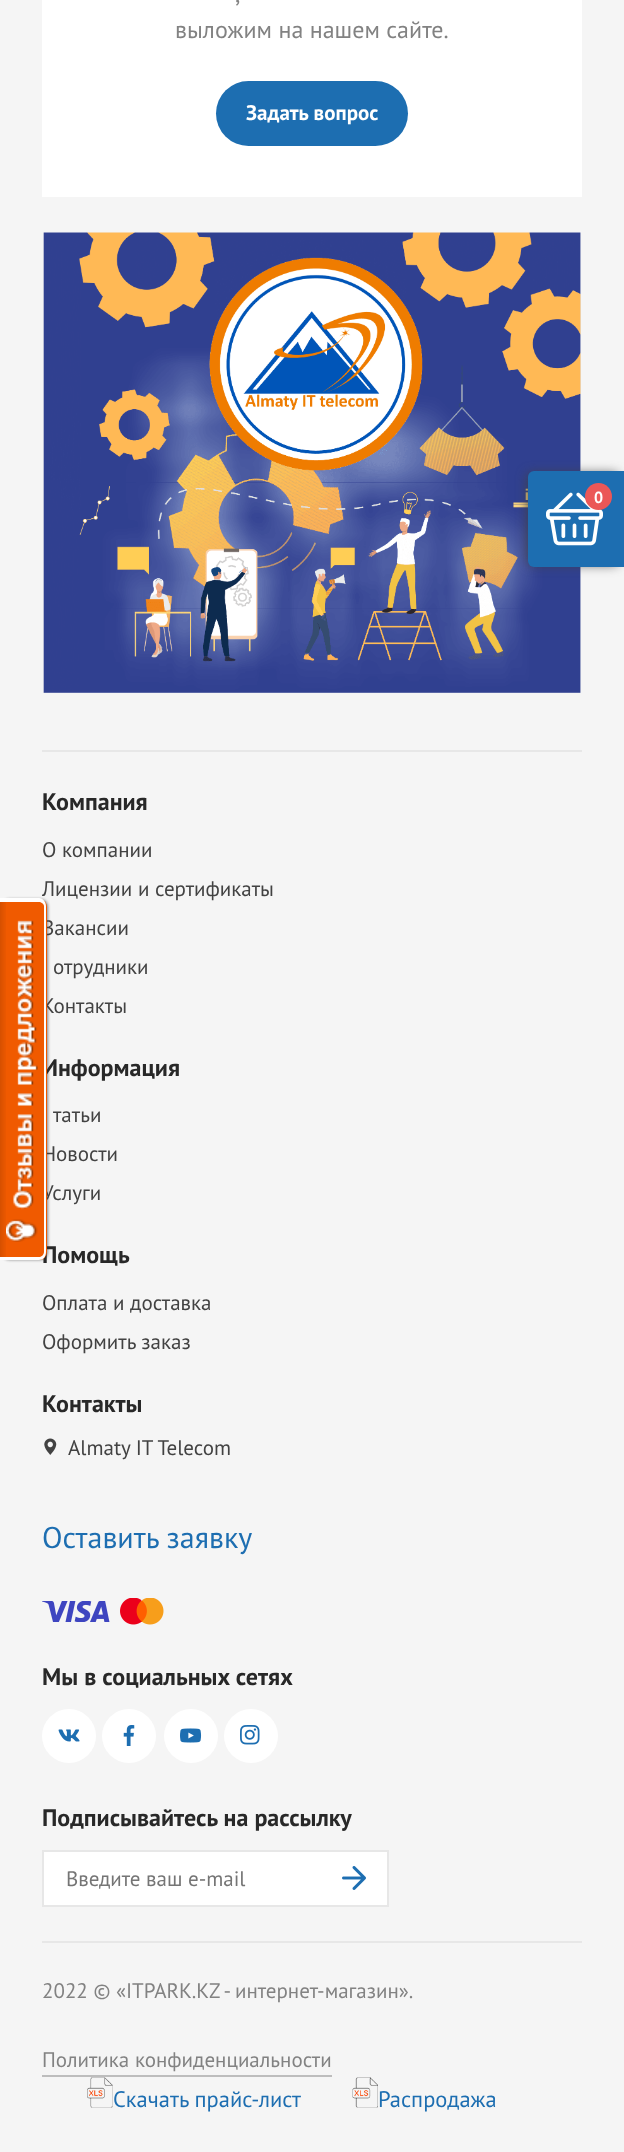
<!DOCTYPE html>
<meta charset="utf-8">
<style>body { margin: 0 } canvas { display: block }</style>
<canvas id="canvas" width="624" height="2152"></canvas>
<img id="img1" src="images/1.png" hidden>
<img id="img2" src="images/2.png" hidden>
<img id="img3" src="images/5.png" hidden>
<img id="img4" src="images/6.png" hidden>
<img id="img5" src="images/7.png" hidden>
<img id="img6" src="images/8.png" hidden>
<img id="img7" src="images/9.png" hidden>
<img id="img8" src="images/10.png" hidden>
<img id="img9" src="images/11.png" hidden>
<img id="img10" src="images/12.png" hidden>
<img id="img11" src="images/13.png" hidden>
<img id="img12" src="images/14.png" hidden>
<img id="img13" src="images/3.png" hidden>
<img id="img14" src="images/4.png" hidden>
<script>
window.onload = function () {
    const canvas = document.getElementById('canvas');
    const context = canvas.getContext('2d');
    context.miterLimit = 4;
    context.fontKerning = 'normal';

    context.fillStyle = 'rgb(245, 245, 245)';
    context.fillRect(0, 0, 624, 2152);
    context.fillStyle = 'rgb(255, 255, 255)';
    context.fillRect(42, 0, 540, 197);
    context.fillStyle = 'rgb(29, 110, 177)';
    context.beginPath();
    context.roundRect(216, 81, 192, 65, 32.5);
    context.fill();
    context.drawImage(document.getElementById('img1'), 43, 232, 538, 461);
    context.fillStyle = 'rgb(66, 66, 66)';
    context.filter = 'blur(6px)';
    context.beginPath();
    context.roundRect(528, 474, 90, 90, 3);
    context.fill();
    context.filter = 'none';
    context.fillStyle = 'rgb(29, 110, 177)';
    context.beginPath();
    context.roundRect(528, 471, 96, 96, [6, 0, 0, 6]);
    context.fill();
    context.drawImage(document.getElementById('img2'), 546, 492, 57, 54);
    context.fillStyle = 'rgb(235, 87, 87)';
    context.beginPath();
    context.arc(598.5, 496.5, 13.5, 0, 2 * Math.PI);
    context.fill();
    context.fillStyle = 'rgb(136, 136, 136)';
    context.filter = 'blur(1.5px)';
    context.beginPath();
    context.roundRect(2, 899, 46, 361, 8);
    context.fill();
    context.filter = 'none';
    context.fillStyle = 'rgb(231, 231, 231)';
    context.fillRect(42, 750, 540, 2);
    context.drawImage(document.getElementById('img3'), 44, 1438, 13, 17);
    context.drawImage(document.getElementById('img4'), 42, 1601, 68, 21);
    context.drawImage(document.getElementById('img5'), 120, 1598, 44, 27);
    context.fillStyle = 'rgb(255, 255, 255)';
    context.beginPath();
    context.arc(69, 1736, 27, 0, 2 * Math.PI);
    context.fill();
    context.drawImage(document.getElementById('img6'), 58, 1729, 22, 13);
    context.beginPath();
    context.arc(129, 1736, 27, 0, 2 * Math.PI);
    context.fill();
    context.drawImage(document.getElementById('img7'), 123, 1725, 12, 21);
    context.beginPath();
    context.arc(191, 1736, 27, 0, 2 * Math.PI);
    context.fill();
    context.drawImage(document.getElementById('img8'), 180, 1728, 22, 15);
    context.beginPath();
    context.arc(251, 1736, 27, 0, 2 * Math.PI);
    context.fill();
    context.drawImage(document.getElementById('img9'), 240, 1725, 20, 20);
    context.beginPath();
    context.rect(43, 1851, 345, 55);
    context.fill();
    context.strokeStyle = 'rgb(231, 231, 231)';
    context.lineWidth = 2;
    context.stroke();
    context.drawImage(document.getElementById('img10'), 342, 1866, 24, 24);
    context.fillStyle = 'rgb(231, 231, 231)';
    context.fillRect(42, 1941, 540, 2);
    context.fillStyle = 'rgb(189, 189, 189)';
    context.fillRect(42, 2075, 290, 2);
    context.drawImage(document.getElementById('img11'), 87, 2077, 26, 31);
    context.drawImage(document.getElementById('img12'), 352, 2077, 26, 31);
    context.font = '24px PT Sans';
    context.fillStyle = 'rgb(130, 130, 130)';
    context.fillText(',', 235, 2);
    context.fillText('выложим на нашем сайте.', 175, 38);
    context.font = 'bold 21px PT Sans';
    context.fillStyle = 'rgb(255, 255, 255)';
    context.fillText('Задать вопрос', 246, 120);
    context.font = 'bold 16px PT Sans';
    context.fillText('0', 594, 503);
    context.font = 'bold 24px PT Sans';
    context.fillStyle = 'rgb(40, 40, 40)';
    context.fillText('Компания', 42, 810);
    context.font = '21px PT Sans';
    context.fillStyle = 'rgb(66, 66, 66)';
    context.fillText('О компании', 42, 857);
    context.fillText('Лицензии и сертификаты', 42, 896);
    context.fillText('Вакансии', 42, 935);
    context.fillText('отрудники', 53, 974);
    context.fillText('Контакты', 42, 1013);
    context.font = 'bold 24px PT Sans';
    context.fillStyle = 'rgb(40, 40, 40)';
    context.fillText('Информация', 42, 1076);
    context.font = '21px PT Sans';
    context.fillStyle = 'rgb(66, 66, 66)';
    context.fillText('татьи', 53, 1122);
    context.fillText('Новости', 42, 1161);
    context.fillText('Услуги', 42, 1200);
    context.font = 'bold 24px PT Sans';
    context.fillStyle = 'rgb(40, 40, 40)';
    context.fillText('Помощь', 42, 1263);
    context.fillStyle = 'rgb(240, 90, 0)';
    context.beginPath();
    context.roundRect(0, 899, 47, 361, [0, 8, 8, 0]);
    context.fill();
    context.drawImage(document.getElementById('img13'), 0, 902, 6, 355);
    context.fillStyle = 'rgb(255, 255, 255)';
    context.beginPath();
    context.moveTo(0, 898);
    context.lineTo(39, 898);
    context.bezierCurveTo(43, 898, 46, 902, 46, 906);
    context.lineTo(46, 1252);
    context.bezierCurveTo(46, 1257, 43, 1260, 39, 1260);
    context.lineTo(0, 1260);
    context.closePath();
    context.moveTo(0, 902);
    context.lineTo(39, 902);
    context.bezierCurveTo(41, 902, 44, 904, 44, 906);
    context.lineTo(44, 1252);
    context.bezierCurveTo(44, 1255, 41, 1257, 39, 1257);
    context.lineTo(0, 1257);
    context.closePath();
    context.fill('evenodd');
    context.drawImage(document.getElementById('img14'), 6, 920, 32, 322);
    context.font = '21px PT Sans';
    context.fillStyle = 'rgb(66, 66, 66)';
    context.fillText('Оплата и доставка', 42, 1310);
    context.fillText('Оформить заказ', 42, 1349);
    context.font = 'bold 24px PT Sans';
    context.fillStyle = 'rgb(40, 40, 40)';
    context.fillText('Контакты', 42, 1412);
    context.font = '21px PT Sans';
    context.fillStyle = 'rgb(66, 66, 66)';
    context.fillText('Almaty IT Telecom', 68, 1455);
    context.font = '30px PT Sans';
    context.fillStyle = 'rgb(29, 110, 177)';
    context.fillText('Оставить заявку', 42, 1548);
    context.font = 'bold 24px PT Sans';
    context.fillStyle = 'rgb(40, 40, 40)';
    context.fillText('Мы в социальных сетях', 42, 1685);
    context.fillText('Подписывайтесь на рассылку', 42, 1826);
    context.font = '21px PT Sans';
    context.fillStyle = 'rgb(117, 117, 117)';
    context.fillText('Введите ваш e-mail', 66, 1886);
    context.fillStyle = 'rgb(130, 130, 130)';
    context.fillText('2022 © «ITPARK.KZ - интернет-магазин».', 42, 1998);
    context.fillText('Политика конфиденциальности', 42, 2067);
    context.font = '22.5px PT Sans';
    context.fillStyle = 'rgb(29, 110, 177)';
    context.fillText('Скачать прайс-лист', 113, 2107);
    context.fillText('Распродажа', 378, 2107);
};
</script>
